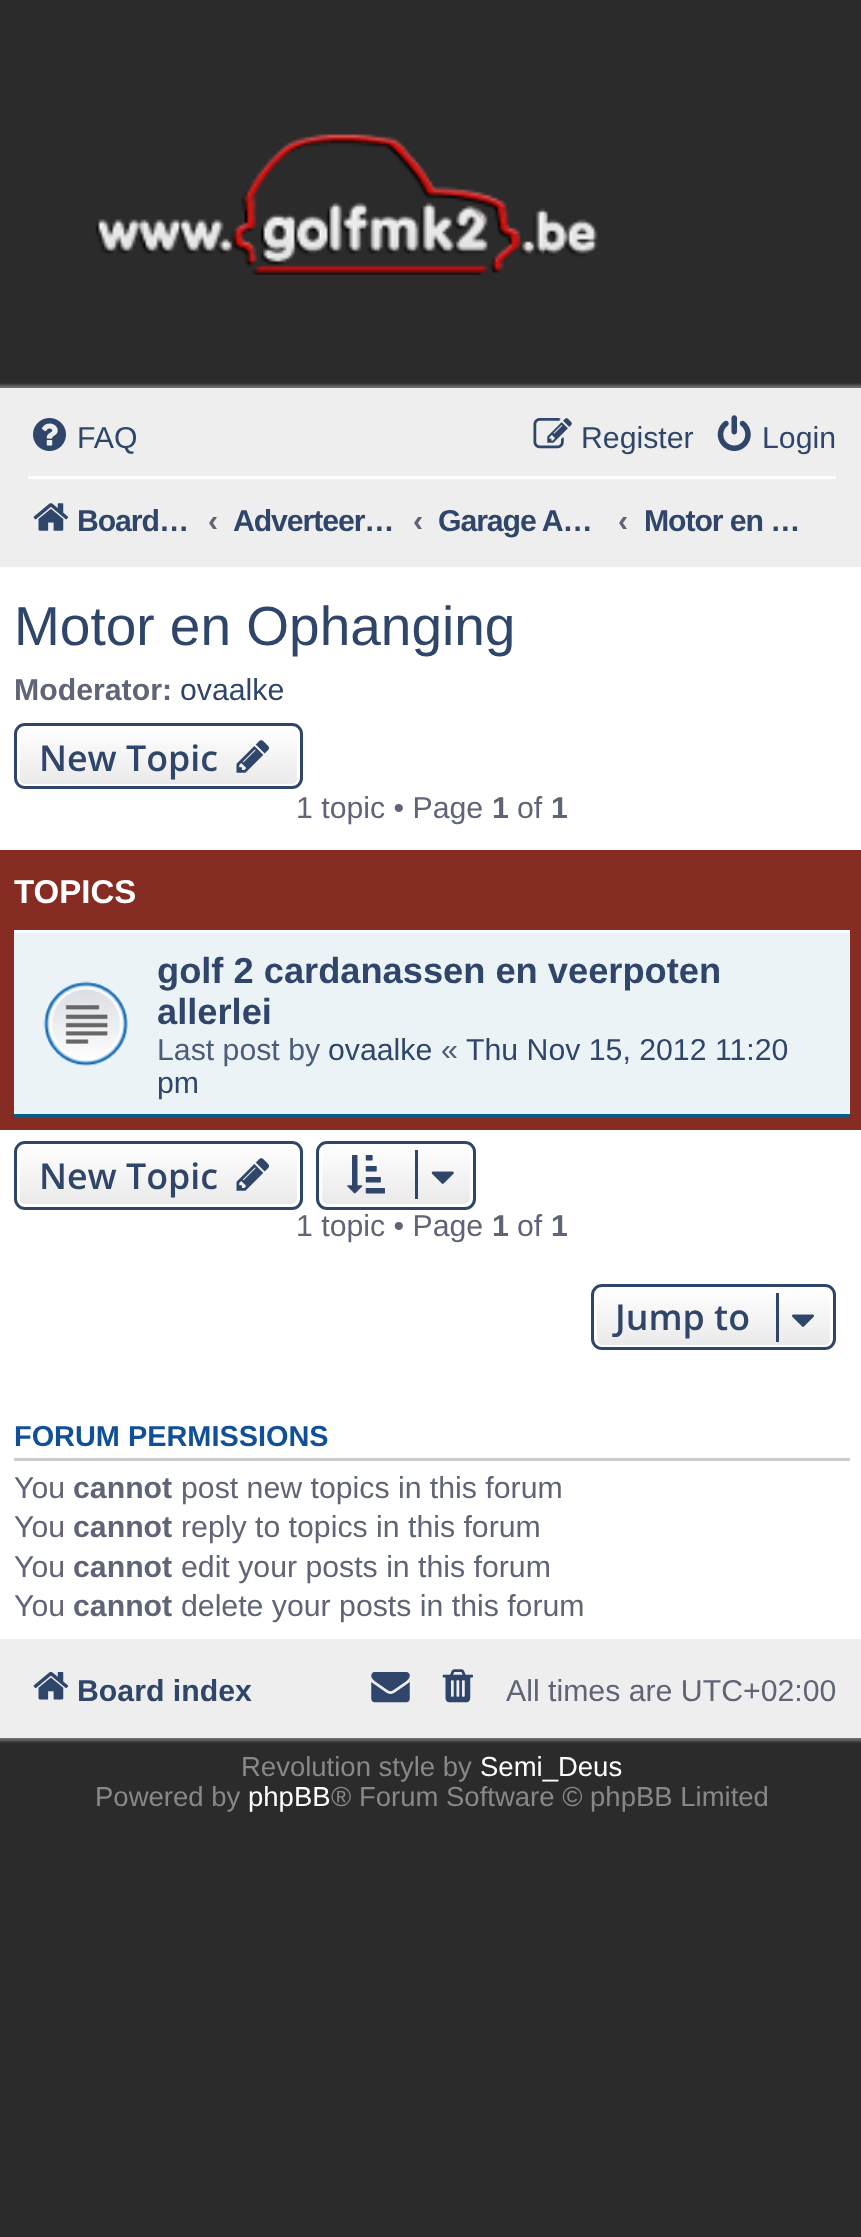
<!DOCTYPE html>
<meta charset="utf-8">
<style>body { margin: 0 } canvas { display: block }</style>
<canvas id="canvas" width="861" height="2237"></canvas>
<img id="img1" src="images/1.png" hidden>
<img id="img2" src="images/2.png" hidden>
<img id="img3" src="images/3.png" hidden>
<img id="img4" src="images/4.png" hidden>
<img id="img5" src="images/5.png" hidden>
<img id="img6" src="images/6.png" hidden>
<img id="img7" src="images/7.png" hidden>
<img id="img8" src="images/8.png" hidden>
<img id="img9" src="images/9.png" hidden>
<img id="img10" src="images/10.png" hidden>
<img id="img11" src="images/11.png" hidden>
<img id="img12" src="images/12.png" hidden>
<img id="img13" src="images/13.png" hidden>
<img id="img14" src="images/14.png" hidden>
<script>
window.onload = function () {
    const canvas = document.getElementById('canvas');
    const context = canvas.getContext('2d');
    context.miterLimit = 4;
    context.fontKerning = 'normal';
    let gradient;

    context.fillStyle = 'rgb(43, 43, 43)';
    context.fillRect(0, 0, 861, 2237);
    context.drawImage(document.getElementById('img1'), 95, 134, 503, 141);
    context.fillStyle = 'rgb(110, 110, 110)';
    context.filter = 'blur(1.5px)';
    context.beginPath();
    context.rect(-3, 385, 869, 1356);
    context.fill();
    context.filter = 'none';
    context.fillStyle = 'rgb(255, 255, 255)';
    context.fillRect(0, 567, 861, 1072);
    context.fillStyle = 'rgb(238, 238, 238)';
    context.fillRect(0, 388, 861, 179);
    context.drawImage(document.getElementById('img2'), 33, 418, 33, 33);
    context.drawImage(document.getElementById('img3'), 533, 418, 39, 31);
    context.drawImage(document.getElementById('img4'), 717, 415, 34, 36);
    context.fillStyle = 'rgb(255, 255, 255)';
    context.fillRect(28, 476, 808, 3);
    context.drawImage(document.getElementById('img5'), 33, 503, 36, 28);
    context.save();
    context.beginPath();
    context.roundRect(14, 723, 289, 66, 11);
    context.clip();
    gradient = context.createLinearGradient(158, 726, 158, 787);
    gradient.addColorStop(0, 'rgb(255, 255, 255)');
    gradient.addColorStop(1, 'rgb(233, 233, 233)');
    context.fillStyle = gradient;
    context.fillRect(14, 726, 289, 61);
    context.restore();
    context.beginPath();
    context.roundRect(18.5, 727.5, 280, 58, 6.5);
    context.strokeStyle = 'rgb(255, 255, 255)';
    context.lineWidth = 3;
    context.stroke();
    context.beginPath();
    context.roundRect(15.5, 724.5, 286, 63, 9.5);
    context.strokeStyle = 'rgb(47, 70, 106)';
    context.stroke();
    context.drawImage(document.getElementById('img6'), 236, 740, 33, 33);
    context.fillStyle = 'rgb(134, 44, 35)';
    context.fillRect(0, 850, 861, 280);
    context.fillStyle = 'rgb(236, 243, 247)';
    context.fillRect(14, 933, 836, 181);
    context.fillStyle = 'rgb(255, 255, 255)';
    context.fillRect(14, 930, 836, 3);
    context.fillStyle = 'rgb(0, 96, 143)';
    context.fillRect(14, 1114, 836, 3);
    context.drawImage(document.getElementById('img7'), 43, 981, 86, 85);
    context.save();
    context.beginPath();
    context.roundRect(14, 1141, 289, 69, 11);
    context.clip();
    gradient = context.createLinearGradient(158, 1144, 158, 1207);
    gradient.addColorStop(0, 'rgb(255, 255, 255)');
    gradient.addColorStop(1, 'rgb(233, 233, 233)');
    context.fillStyle = gradient;
    context.fillRect(14, 1144, 289, 63);
    context.restore();
    context.beginPath();
    context.roundRect(18.5, 1145.5, 280, 60, 6.5);
    context.strokeStyle = 'rgb(255, 255, 255)';
    context.stroke();
    context.beginPath();
    context.roundRect(15.5, 1142.5, 286, 66, 9.5);
    context.strokeStyle = 'rgb(47, 70, 106)';
    context.stroke();
    context.drawImage(document.getElementById('img8'), 236, 1158, 33, 33);
    context.save();
    context.beginPath();
    context.roundRect(316, 1141, 160, 69, 11);
    context.clip();
    gradient = context.createLinearGradient(396, 1144, 396, 1207);
    gradient.addColorStop(0, 'rgb(255, 255, 255)');
    gradient.addColorStop(1, 'rgb(233, 233, 233)');
    context.fillStyle = gradient;
    context.fillRect(316, 1144, 160, 63);
    context.restore();
    context.beginPath();
    context.roundRect(320.5, 1145.5, 151, 60, 6.5);
    context.strokeStyle = 'rgb(255, 255, 255)';
    context.stroke();
    context.beginPath();
    context.roundRect(317.5, 1142.5, 157, 66, 9.5);
    context.strokeStyle = 'rgb(47, 70, 106)';
    context.stroke();
    context.drawImage(document.getElementById('img9'), 347, 1155, 38, 39);
    context.fillStyle = 'rgb(47, 70, 106)';
    context.fillRect(415, 1150, 3, 49);
    context.drawImage(document.getElementById('img10'), 431, 1171, 23, 13);
    context.save();
    context.beginPath();
    context.roundRect(591, 1284, 245, 66, 11);
    context.clip();
    gradient = context.createLinearGradient(714, 1287, 714, 1348);
    gradient.addColorStop(0, 'rgb(255, 255, 255)');
    gradient.addColorStop(1, 'rgb(233, 233, 233)');
    context.fillStyle = gradient;
    context.fillRect(591, 1287, 245, 61);
    context.restore();
    context.beginPath();
    context.roundRect(595.5, 1288.5, 236, 58, 6.5);
    context.strokeStyle = 'rgb(255, 255, 255)';
    context.stroke();
    context.beginPath();
    context.roundRect(592.5, 1285.5, 242, 63, 9.5);
    context.strokeStyle = 'rgb(47, 70, 106)';
    context.stroke();
    context.fillRect(776, 1293, 3, 49);
    context.drawImage(document.getElementById('img11'), 792, 1314, 22, 13);
    context.fillStyle = 'rgb(204, 204, 204)';
    context.fillRect(14, 1458, 836, 3);
    context.fillStyle = 'rgb(238, 238, 238)';
    context.fillRect(0, 1639, 861, 99);
    context.drawImage(document.getElementById('img12'), 33, 1672, 36, 28);
    context.drawImage(document.getElementById('img13'), 371, 1672, 39, 31);
    context.drawImage(document.getElementById('img14'), 442, 1669, 31, 34);
    context.font = '30.25px Liberation Sans';
    context.fillStyle = 'rgb(47, 70, 106)';
    context.fillText('FAQ', 77, 448);
    context.fillText('Register', 581, 448);
    context.fillText('Login', 762, 448);
    context.letterSpacing = '-1.1px';
    context.font = 'bold 30.25px Liberation Sans';
    context.fillText('Board…', 77, 531);
    context.letterSpacing = '0px';
    context.fillStyle = 'rgb(95, 100, 118)';
    context.fillText('‹', 208, 531);
    context.letterSpacing = '-1.1px';
    context.fillStyle = 'rgb(47, 70, 106)';
    context.fillText('Adverteer…', 233, 531);
    context.letterSpacing = '0px';
    context.fillStyle = 'rgb(95, 100, 118)';
    context.fillText('‹', 413, 531);
    context.letterSpacing = '-1.1px';
    context.fillStyle = 'rgb(47, 70, 106)';
    context.fillText('Garage A…', 438, 531);
    context.letterSpacing = '0px';
    context.fillStyle = 'rgb(95, 100, 118)';
    context.fillText('‹', 618, 531);
    context.letterSpacing = '-1.1px';
    context.fillStyle = 'rgb(47, 70, 106)';
    context.fillText('Motor en …', 644, 531);
    context.letterSpacing = '0px';
    context.font = '55px Liberation Sans';
    context.fillText('Motor en Ophanging', 14, 645);
    context.font = 'bold 30.25px Liberation Sans';
    context.fillStyle = 'rgb(95, 100, 118)';
    context.fillText('Moderator:', 14, 700);
    context.font = '30.25px Liberation Sans';
    context.fillStyle = 'rgb(47, 70, 106)';
    context.fillText('ovaalke', 180, 700);
    context.font = '600 35.75px Open Sans';
    context.fillText('New Topic', 39, 771);
    context.font = '30.25px Liberation Sans';
    context.fillStyle = 'rgb(95, 100, 118)';
    context.fillText('1 topic • Page', 296, 818);
    context.font = 'bold 30.25px Liberation Sans';
    context.fillText('1', 492, 818);
    context.font = '30.25px Liberation Sans';
    context.fillText('of', 517, 818);
    context.font = 'bold 30.25px Liberation Sans';
    context.fillText('1', 551, 818);
    context.font = 'bold 33px Liberation Sans';
    context.fillStyle = 'rgb(255, 255, 255)';
    context.fillText('TOPICS', 14, 903);
    context.font = 'bold 36.25px Liberation Sans';
    context.fillStyle = 'rgb(47, 70, 106)';
    context.fillText('golf 2 cardanassen en veerpoten', 157, 983);
    context.fillText('allerlei', 157, 1024);
    context.font = '30.25px Liberation Sans';
    context.fillStyle = 'rgb(76, 93, 119)';
    context.fillText('Last post by', 157, 1060);
    context.fillStyle = 'rgb(47, 70, 106)';
    context.fillText('ovaalke', 328, 1060);
    context.fillStyle = 'rgb(76, 93, 119)';
    context.fillText('«', 441, 1060);
    context.fillStyle = 'rgb(47, 70, 106)';
    context.fillText('Thu Nov 15, 2012 11:20', 466, 1060);
    context.fillText('pm', 157, 1093);
    context.font = '600 35.75px Open Sans';
    context.fillText('New Topic', 39, 1189);
    context.font = '30.25px Liberation Sans';
    context.fillStyle = 'rgb(95, 100, 118)';
    context.fillText('1 topic • Page', 296, 1236);
    context.font = 'bold 30.25px Liberation Sans';
    context.fillText('1', 492, 1236);
    context.font = '30.25px Liberation Sans';
    context.fillText('of', 517, 1236);
    context.font = 'bold 30.25px Liberation Sans';
    context.fillText('1', 551, 1236);
    context.font = '600 35.75px Open Sans';
    context.fillStyle = 'rgb(47, 70, 106)';
    context.fillText('Jump to', 615, 1330);
    context.font = 'bold 28.9px Liberation Sans';
    context.fillStyle = 'rgb(17, 80, 152)';
    context.fillText('FORUM PERMISSIONS', 14, 1446);
    context.font = '30.25px Liberation Sans';
    context.fillStyle = 'rgb(95, 100, 118)';
    context.fillText('You', 14, 1498);
    context.font = 'bold 30.25px Liberation Sans';
    context.fillText('cannot', 73, 1498);
    context.font = '30.25px Liberation Sans';
    context.fillText('post new topics in this forum', 181, 1498);
    context.fillText('You', 14, 1537);
    context.font = 'bold 30.25px Liberation Sans';
    context.fillText('cannot', 73, 1537);
    context.font = '30.25px Liberation Sans';
    context.fillText('reply to topics in this forum', 181, 1537);
    context.fillText('You', 14, 1577);
    context.font = 'bold 30.25px Liberation Sans';
    context.fillText('cannot', 73, 1577);
    context.font = '30.25px Liberation Sans';
    context.fillText('edit your posts in this forum', 181, 1577);
    context.fillText('You', 14, 1616);
    context.font = 'bold 30.25px Liberation Sans';
    context.fillText('cannot', 73, 1616);
    context.font = '30.25px Liberation Sans';
    context.fillText('delete your posts in this forum', 181, 1616);
    context.font = 'bold 30.25px Liberation Sans';
    context.fillStyle = 'rgb(47, 70, 106)';
    context.fillText('Board index', 77, 1701);
    context.font = '30.25px Liberation Sans';
    context.fillStyle = 'rgb(95, 100, 118)';
    context.fillText('All times are UTC+02:00', 506, 1701);
    context.font = '27.5px Liberation Sans';
    context.fillStyle = 'rgb(136, 136, 136)';
    context.fillText('Revolution style by', 241, 1776);
    context.fillStyle = 'rgb(255, 255, 255)';
    context.fillText('Semi_Deus', 480, 1776);
    context.fillStyle = 'rgb(136, 136, 136)';
    context.fillText('Powered by', 95, 1806);
    context.fillStyle = 'rgb(255, 255, 255)';
    context.fillText('phpBB', 248, 1806);
    context.fillStyle = 'rgb(136, 136, 136)';
    context.fillText('® Forum Software © phpBB Limited', 331, 1806);
};
</script>
